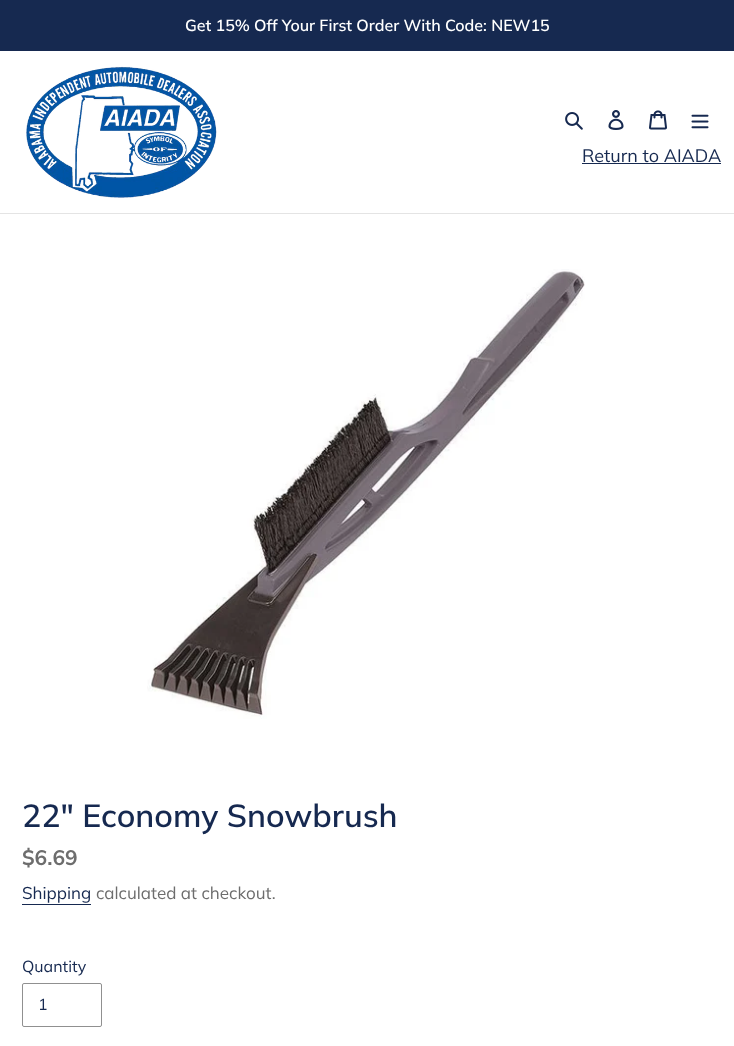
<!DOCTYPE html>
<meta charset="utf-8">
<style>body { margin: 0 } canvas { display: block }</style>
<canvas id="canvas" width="734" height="1046"></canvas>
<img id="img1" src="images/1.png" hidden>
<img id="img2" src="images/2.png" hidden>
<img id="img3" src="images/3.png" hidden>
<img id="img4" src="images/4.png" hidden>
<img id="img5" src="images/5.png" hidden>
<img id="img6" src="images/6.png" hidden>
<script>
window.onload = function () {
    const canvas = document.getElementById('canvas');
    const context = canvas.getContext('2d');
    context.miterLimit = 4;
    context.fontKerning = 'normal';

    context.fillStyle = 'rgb(255, 255, 255)';
    context.fillRect(0, 0, 734, 1046);
    context.fillStyle = 'rgb(22, 41, 80)';
    context.fillRect(0, 0, 734, 51);
    context.fillStyle = 'rgb(228, 228, 228)';
    context.fillRect(0, 213, 734, 1);
    context.drawImage(document.getElementById('img1'), 26, 66, 191, 132);
    context.drawImage(document.getElementById('img2'), 565, 112, 18, 18);
    context.drawImage(document.getElementById('img3'), 608, 110, 16, 20);
    context.drawImage(document.getElementById('img4'), 649, 110, 18, 20);
    context.drawImage(document.getElementById('img5'), 691, 114, 18, 15);
    context.fillStyle = 'rgb(22, 41, 80)';
    context.fillRect(582, 163, 139, 1);
    context.drawImage(document.getElementById('img6'), 147, 269, 438, 450);
    context.fillRect(22, 904, 69, 1);
    context.beginPath();
    context.roundRect(22.5, 983.5, 79, 43, 1.5);
    context.strokeStyle = 'rgb(144, 144, 144)';
    context.stroke();
    context.font = '600 16px Muli';
    context.fillStyle = 'rgb(255, 255, 255)';
    context.fillText('Get 15% Off Your First Order With Code: NEW15', 185, 31);
    context.font = '18px Muli';
    context.fillStyle = 'rgb(22, 41, 80)';
    context.fillText('Return to AIADA', 582, 162);
    context.font = '600 32px Muli';
    context.fillText('22" Economy Snowbrush', 22, 827);
    context.font = 'bold 21px Muli';
    context.fillStyle = 'rgb(109, 109, 109)';
    context.fillText('$6.69', 22, 865);
    context.font = '17px Muli';
    context.fillStyle = 'rgb(22, 41, 80)';
    context.fillText('Shipping', 22, 899);
    context.fillStyle = 'rgb(109, 109, 109)';
    context.fillText('calculated at checkout.', 96, 899);
    context.font = '16px Muli';
    context.fillStyle = 'rgb(22, 41, 80)';
    context.fillText('Quantity', 22, 972);
    context.fillText('1', 38, 1010);
};
</script>
